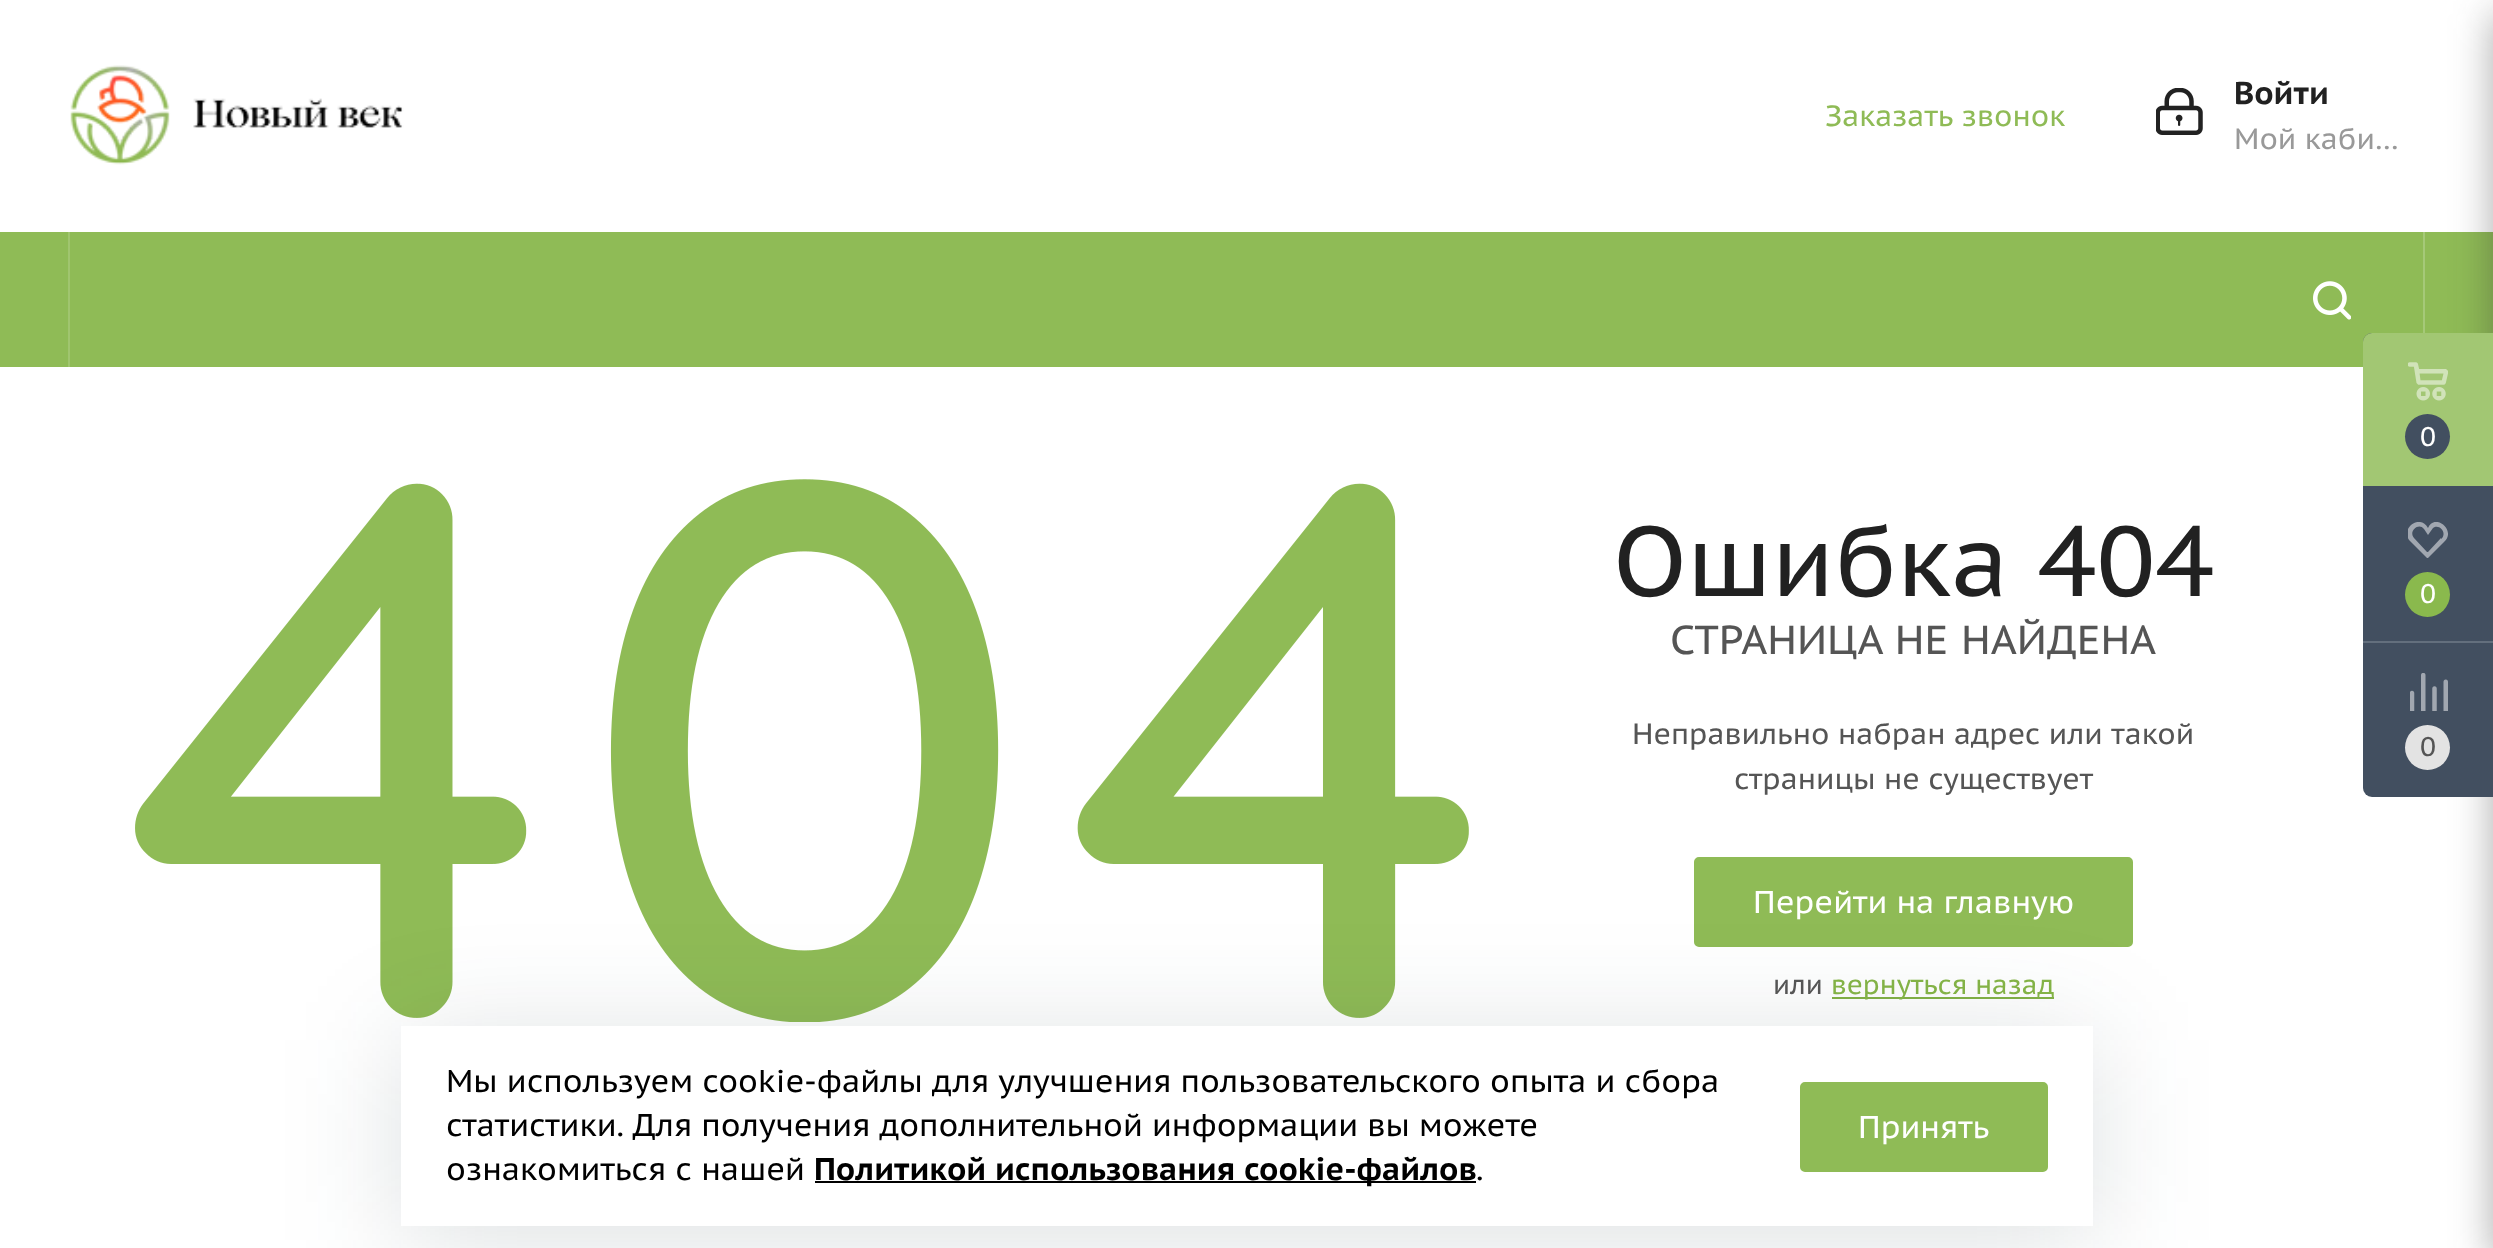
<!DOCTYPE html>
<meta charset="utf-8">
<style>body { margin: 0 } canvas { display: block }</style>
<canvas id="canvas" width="2493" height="1248"></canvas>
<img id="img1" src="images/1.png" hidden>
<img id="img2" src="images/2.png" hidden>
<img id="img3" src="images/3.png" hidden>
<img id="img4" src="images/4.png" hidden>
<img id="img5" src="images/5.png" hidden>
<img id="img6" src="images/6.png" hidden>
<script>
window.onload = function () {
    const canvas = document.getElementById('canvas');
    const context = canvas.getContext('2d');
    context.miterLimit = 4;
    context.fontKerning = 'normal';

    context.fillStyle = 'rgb(255, 255, 255)';
    context.fillRect(0, 0, 2493, 1248);
    context.drawImage(document.getElementById('img1'), 70, 65, 334, 100);
    context.drawImage(document.getElementById('img2'), 2156, 88, 47, 47);
    context.fillStyle = 'rgb(143, 187, 86)';
    context.fillRect(0, 232, 2493, 135);
    context.fillStyle = 'rgb(160, 197, 111)';
    context.fillRect(68, 232, 2, 135);
    context.fillStyle = 'rgb(165, 201, 120)';
    context.fillRect(2423, 232, 2, 101);
    context.drawImage(document.getElementById('img3'), 2313, 281, 38, 39);
    context.drawImage(document.getElementById('img4'), 135, 479, 1334, 543);
    context.fillStyle = 'rgb(143, 187, 86)';
    context.beginPath();
    context.roundRect(1695, 858, 437, 88, 4);
    context.fill();
    context.strokeStyle = 'rgb(143, 187, 86)';
    context.lineWidth = 2;
    context.stroke();
    context.fillStyle = 'rgb(131, 178, 70)';
    context.fillRect(1832, 997, 222, 2);
    context.fillStyle = 'rgba(44, 44, 44, 0.4)';
    context.filter = 'blur(20px)';
    context.beginPath();
    context.roundRect(2493, 14, 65, 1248, 5);
    context.fill();
    context.filter = 'none';
    context.fillStyle = 'rgb(66, 79, 96)';
    context.beginPath();
    context.roundRect(2363, 333, 130, 464, [9, 0, 0, 9]);
    context.fill();
    context.fillStyle = 'rgb(162, 199, 115)';
    context.beginPath();
    context.roundRect(2363, 333, 130, 153, [9, 0, 0, 0]);
    context.fill();
    context.drawImage(document.getElementById('img5'), 2408, 362, 40, 39);
    context.fillStyle = 'rgb(66, 79, 96)';
    context.beginPath();
    context.arc(2427.5, 436.5, 22.5, 0, 2 * Math.PI);
    context.fill();
    context.save();
    context.beginPath();
    context.rect(2408, 522, 40, 36);
    context.clip();
    context.fillStyle = 'rgb(161, 167, 176)';
    context.beginPath();
    context.moveTo(2444, 542);
    context.lineTo(2428, 558);
    context.lineTo(2427, 558);
    context.lineTo(2410, 541);
    context.bezierCurveTo(2399, 529, 2420, 513, 2428, 528);
    context.bezierCurveTo(2435, 512, 2457, 531, 2444, 542);
    context.closePath();
    context.moveTo(2441, 538);
    context.lineTo(2428, 552);
    context.lineTo(2427, 552);
    context.lineTo(2414, 538);
    context.bezierCurveTo(2408, 531, 2419, 522, 2424, 529);
    context.lineTo(2428, 535);
    context.lineTo(2433, 528);
    context.bezierCurveTo(2439, 523, 2448, 533, 2441, 539);
    context.closePath();
    context.fill('evenodd');
    context.restore();
    context.fillStyle = 'rgb(138, 185, 77)';
    context.beginPath();
    context.arc(2427.5, 594.5, 22.5, 0, 2 * Math.PI);
    context.fill();
    context.fillStyle = 'rgb(99, 111, 125)';
    context.fillRect(2363, 641, 130, 2);
    context.drawImage(document.getElementById('img6'), 2410, 673, 38, 38);
    context.fillStyle = 'rgb(227, 227, 227)';
    context.beginPath();
    context.arc(2427.5, 747.5, 22.5, 0, 2 * Math.PI);
    context.fill();
    context.fillStyle = 'rgba(21, 46, 51, 0.15)';
    context.filter = 'blur(57.5px)';
    context.beginPath();
    context.rect(401, 1040, 1692, 200);
    context.fill();
    context.filter = 'none';
    context.fillStyle = 'rgb(255, 255, 255)';
    context.fillRect(401, 1026, 1692, 200);
    context.fillStyle = 'rgb(0, 0, 0)';
    context.fillRect(815, 1181, 661, 2);
    context.fillStyle = 'rgb(143, 187, 86)';
    context.beginPath();
    context.roundRect(1801, 1083, 246, 88, 4);
    context.fill();
    context.stroke();
    context.wordSpacing = '1px';
    context.font = '29.25px PT Sans Caption';
    context.fillText('Заказать звонок', 1825, 126);
    context.wordSpacing = '0px';
    context.font = 'bold 31.5px PT Sans Caption';
    context.fillStyle = 'rgb(33, 33, 33)';
    context.fillText('Войти', 2234, 104);
    context.font = '29.25px PT Sans Caption';
    context.fillStyle = 'rgb(153, 153, 153)';
    context.fillText('Мой каби…', 2234, 149);
    context.font = '99px PT Sans Caption';
    context.fillStyle = 'rgb(33, 33, 33)';
    context.fillText('Ошибка 404', 1613, 596);
    context.wordSpacing = '1px';
    context.font = '40.5px PT Sans Caption';
    context.fillStyle = 'rgb(85, 85, 85)';
    context.fillText('СТРАНИЦА НЕ НАЙДЕНА', 1670, 654);
    context.wordSpacing = '0px';
    context.font = '29.25px PT Sans Caption';
    context.fillText('Неправильно набран адрес или такой', 1632, 744);
    context.fillText('страницы не существует', 1734, 789);
    context.font = '31.5px PT Sans Caption';
    context.fillStyle = 'rgb(255, 255, 255)';
    context.fillText('Перейти на главную', 1753, 913);
    context.font = '27px PT Sans Caption';
    context.fillStyle = 'rgb(85, 85, 85)';
    context.fillText('или', 1773, 994);
    context.fillStyle = 'rgb(131, 178, 70)';
    context.fillText('вернуться назад', 1831, 994);
    context.fillStyle = 'rgb(255, 255, 255)';
    context.fillText('0', 2420, 446);
    context.fillText('0', 2420, 603);
    context.fillStyle = 'rgb(85, 85, 85)';
    context.fillText('0', 2420, 756);
    context.font = '31.5px PT Sans Caption';
    context.fillStyle = 'rgb(0, 0, 0)';
    context.fillText('Мы используем cookie-файлы для улучшения пользовательского опыта и сбора', 446, 1092);
    context.fillText('статистики. Для получения дополнительной информации вы можете', 446, 1136);
    context.fillText('ознакомиться с нашей', 446, 1180);
    context.font = 'bold 31.5px PT Sans Caption';
    context.fillText('Политикой использования cookie-файлов', 814, 1180);
    context.font = '31.5px PT Sans Caption';
    context.fillText('.', 1476, 1180);
    context.fillStyle = 'rgb(255, 255, 255)';
    context.fillText('Принять', 1858, 1138);
};
</script>
